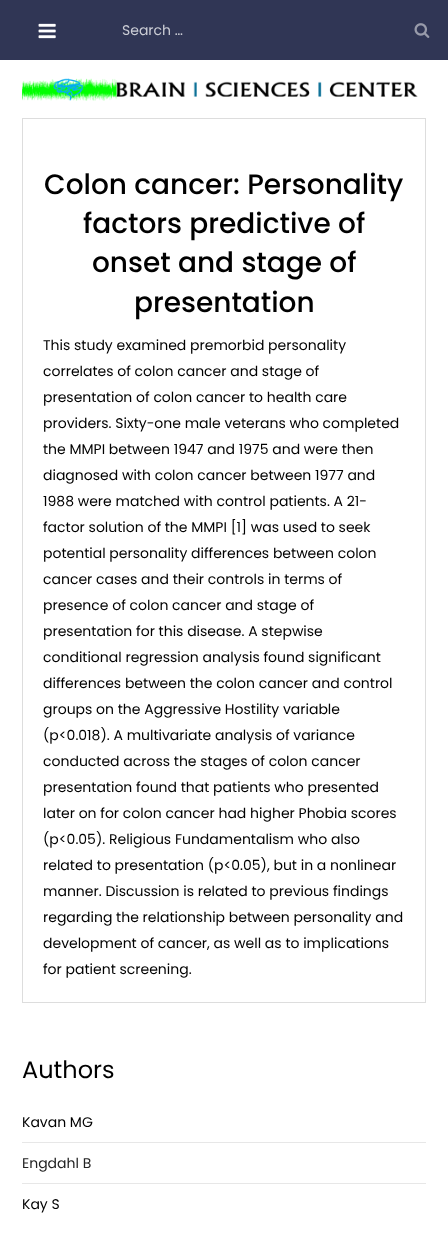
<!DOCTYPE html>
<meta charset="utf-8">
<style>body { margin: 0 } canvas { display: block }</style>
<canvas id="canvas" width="448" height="1243"></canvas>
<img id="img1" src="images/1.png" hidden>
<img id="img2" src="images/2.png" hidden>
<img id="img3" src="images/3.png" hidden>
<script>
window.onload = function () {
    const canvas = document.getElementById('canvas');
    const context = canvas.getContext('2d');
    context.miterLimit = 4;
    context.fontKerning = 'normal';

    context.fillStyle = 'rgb(255, 255, 255)';
    context.fillRect(0, 0, 448, 1243);
    context.fillStyle = 'rgb(48, 54, 85)';
    context.fillRect(0, 0, 448, 60);
    context.drawImage(document.getElementById('img1'), 38, 23, 18, 16);
    context.drawImage(document.getElementById('img2'), 414, 23, 16, 15);
    context.drawImage(document.getElementById('img3'), 22, 78, 396, 23);
    context.strokeStyle = 'rgb(221, 221, 221)';
    context.strokeRect(22.5, 118.5, 403, 884);
    context.fillStyle = 'rgb(231, 231, 231)';
    context.fillRect(22, 1142, 404, 1);
    context.fillRect(22, 1183, 404, 1);
    context.font = '14px Poppins';
    context.fillStyle = 'rgb(203, 205, 213)';
    context.fillText('Search …', 122, 35);
    context.font = '500 28px Poppins';
    context.fillStyle = 'rgb(0, 0, 0)';
    context.fillText('Colon cancer: Personality', 44, 194);
    context.fillText('factors predictive of', 83, 233);
    context.fillText('onset and stage of', 92, 272);
    context.fillText('presentation', 134, 312);
    context.font = '14px Poppins';
    context.fillText('This study examined premorbid personality', 43, 350);
    context.fillText('correlates of colon cancer and stage of', 43, 376);
    context.fillText('presentation of colon cancer to health care', 43, 402);
    context.fillText('providers. Sixty-one male veterans who completed', 43, 428);
    context.fillText('the MMPI between 1947 and 1975 and were then', 43, 454);
    context.fillText('diagnosed with colon cancer between 1977 and', 43, 480);
    context.fillText('1988 were matched with control patients. A 21-', 43, 506);
    context.fillText('factor solution of the MMPI [1] was used to seek', 43, 532);
    context.fillText('potential personality differences between colon', 43, 558);
    context.fillText('cancer cases and their controls in terms of', 43, 584);
    context.fillText('presence of colon cancer and stage of', 43, 610);
    context.fillText('presentation for this disease. A stepwise', 43, 636);
    context.fillText('conditional regression analysis found significant', 43, 662);
    context.fillText('differences between the colon cancer and control', 43, 688);
    context.fillText('groups on the Aggressive Hostility variable', 43, 714);
    context.fillText('(p<0.018). A multivariate analysis of variance', 43, 740);
    context.fillText('conducted across the stages of colon cancer', 43, 766);
    context.fillText('presentation found that patients who presented', 43, 792);
    context.fillText('later on for colon cancer had higher Phobia scores', 43, 818);
    context.fillText('(p<0.05). Religious Fundamentalism who also', 43, 844);
    context.fillText('related to presentation (p<0.05), but in a nonlinear', 43, 870);
    context.fillText('manner. Discussion is related to previous findings', 43, 896);
    context.fillText('regarding the relationship between personality and', 43, 922);
    context.fillText('development of cancer, as well as to implications', 43, 948);
    context.fillText('for patient screening.', 43, 974);
    context.font = '24px Poppins';
    context.fillText('Authors', 22, 1078);
    context.font = '14px Poppins';
    context.fillText('Kavan MG', 22, 1127);
    context.fillStyle = 'rgb(35, 35, 35)';
    context.fillText('Engdahl B', 22, 1168);
    context.fillStyle = 'rgb(0, 0, 0)';
    context.fillText('Kay S', 22, 1209);
};
</script>
